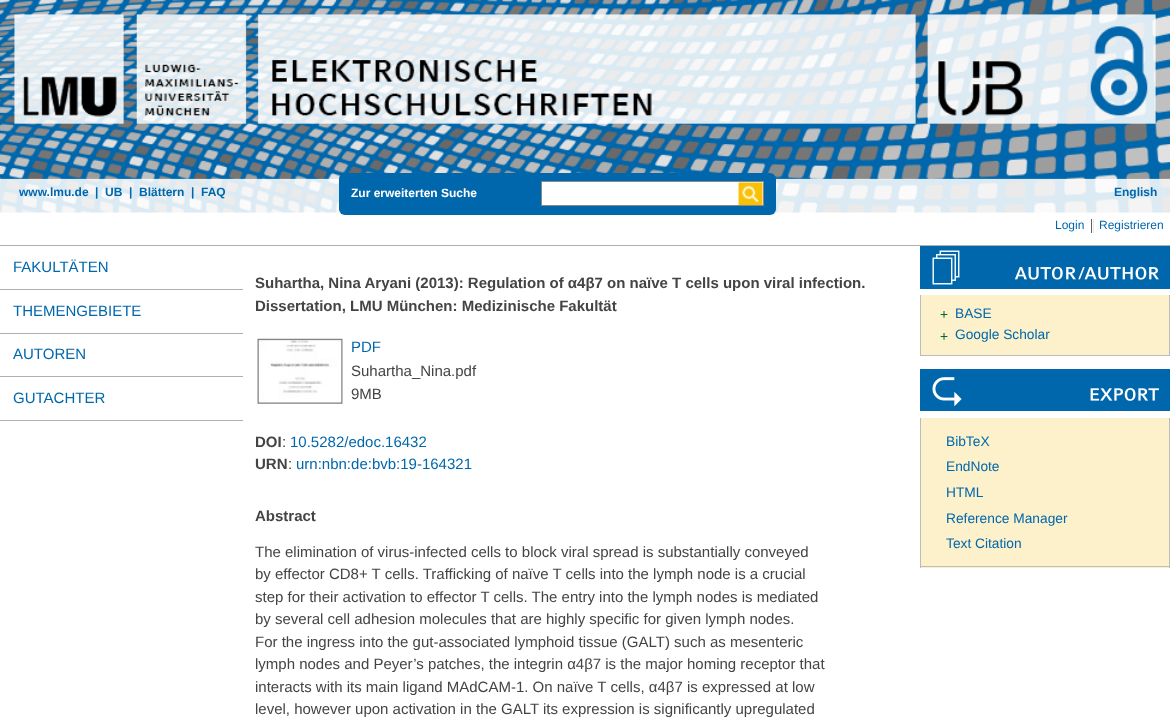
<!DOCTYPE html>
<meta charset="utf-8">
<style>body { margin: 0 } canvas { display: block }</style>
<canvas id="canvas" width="1170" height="726"></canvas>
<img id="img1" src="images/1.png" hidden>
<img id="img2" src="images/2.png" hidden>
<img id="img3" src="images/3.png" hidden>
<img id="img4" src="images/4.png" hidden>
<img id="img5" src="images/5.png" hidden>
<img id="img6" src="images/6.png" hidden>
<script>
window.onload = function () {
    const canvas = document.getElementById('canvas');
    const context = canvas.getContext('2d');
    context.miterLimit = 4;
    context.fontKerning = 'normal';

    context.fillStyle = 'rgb(255, 255, 255)';
    context.fillRect(0, 0, 1170, 726);
    context.drawImage(document.getElementById('img1'), 0, 0, 1170, 213);
    context.fillStyle = 'rgb(0, 103, 172)';
    context.beginPath();
    context.roundRect(339, 173, 437, 42, 6);
    context.fill();
    context.fillStyle = 'rgb(255, 255, 255)';
    context.beginPath();
    context.rect(541.5, 181.5, 222, 24);
    context.fill();
    context.strokeStyle = 'rgb(136, 136, 136)';
    context.stroke();
    context.drawImage(document.getElementById('img2'), 738, 182, 25, 23);
    context.drawImage(document.getElementById('img3'), 738, 182, 25, 23);
    context.fillStyle = 'rgb(96, 96, 96)';
    context.fillRect(1091, 219, 1, 14);
    context.fillStyle = 'rgb(232, 232, 232)';
    context.fillRect(1093, 219, 1, 14);
    context.fillStyle = 'rgb(175, 175, 175)';
    context.fillRect(0, 289, 243, 1);
    context.fillRect(0, 333, 243, 1);
    context.fillRect(0, 420, 243, 1);
    context.fillRect(0, 376, 243, 1);
    context.fillRect(0, 245, 1170, 1);
    context.drawImage(document.getElementById('img4'), 257, 338, 86, 66);
    context.drawImage(document.getElementById('img5'), 920, 246, 250, 43);
    context.fillStyle = 'rgb(252, 241, 202)';
    context.fillRect(921, 295, 248, 60);
    context.fillStyle = 'rgb(188, 188, 188)';
    context.fillRect(1169, 295, 1, 61);
    context.fillRect(920, 355, 250, 1);
    context.fillRect(920, 295, 1, 61);
    context.drawImage(document.getElementById('img6'), 920, 369, 250, 42);
    context.fillStyle = 'rgb(252, 241, 202)';
    context.fillRect(921, 418, 248, 150);
    context.fillStyle = 'rgb(188, 188, 188)';
    context.fillRect(1169, 418, 1, 150);
    context.fillRect(920, 566, 250, 1);
    context.fillRect(920, 418, 1, 150);
    context.font = 'bold 12px Liberation Sans';
    context.fillStyle = 'rgb(0, 103, 172)';
    context.fillText('www.lmu.de', 19, 196);
    context.fillText('|', 95, 196);
    context.fillText('UB', 105, 196);
    context.fillText('|', 129, 196);
    context.fillText('Blättern', 139, 196);
    context.fillText('|', 191, 196);
    context.fillText('FAQ', 201, 196);
    context.fillStyle = 'rgb(255, 255, 255)';
    context.fillText('Zur erweiterten Suche', 351, 197);
    context.fillStyle = 'rgb(0, 103, 172)';
    context.fillText('English', 1114, 196);
    context.font = '12px Liberation Sans';
    context.fillText('Login', 1055, 229);
    context.fillText('Registrieren', 1099, 229);
    context.font = '15px Liberation Sans';
    context.fillText('FAKULTÄTEN', 13, 272);
    context.fillText('THEMENGEBIETE', 13, 316);
    context.fillText('AUTOREN', 13, 359);
    context.fillText('GUTACHTER', 13, 403);
    context.font = 'bold 15px Liberation Sans';
    context.fillStyle = 'rgb(68, 68, 68)';
    context.fillText('Suhartha, Nina Aryani (2013): Regulation of α4β7 on naïve T cells upon viral infection.', 255, 288);
    context.fillText('Dissertation, LMU München: Medizinische Fakultät', 255, 311);
    context.font = '15px Liberation Sans';
    context.fillStyle = 'rgb(0, 103, 172)';
    context.fillText('PDF', 351, 352);
    context.fillStyle = 'rgb(68, 68, 68)';
    context.fillText('Suhartha_Nina.pdf', 351, 376);
    context.fillText('9MB', 351, 399);
    context.font = '13.75px Liberation Sans';
    context.fillStyle = 'rgb(0, 102, 51)';
    context.fillText('+', 940, 319);
    context.fillStyle = 'rgb(0, 103, 172)';
    context.fillText('BASE', 955, 318);
    context.fillStyle = 'rgb(0, 102, 51)';
    context.fillText('+', 940, 341);
    context.fillStyle = 'rgb(0, 103, 172)';
    context.fillText('Google Scholar', 955, 339);
    context.fillText('BibTeX', 946, 446);
    context.fillText('EndNote', 946, 471);
    context.fillText('HTML', 946, 497);
    context.fillText('Reference Manager', 946, 523);
    context.fillText('Text Citation', 946, 548);
    context.font = 'bold 15px Liberation Sans';
    context.fillStyle = 'rgb(68, 68, 68)';
    context.fillText('DOI', 255, 447);
    context.font = '15px Liberation Sans';
    context.fillText(':', 282, 447);
    context.fillStyle = 'rgb(0, 103, 172)';
    context.fillText('10.5282/edoc.16432', 290, 447);
    context.font = 'bold 15px Liberation Sans';
    context.fillStyle = 'rgb(68, 68, 68)';
    context.fillText('URN', 255, 469);
    context.font = '15px Liberation Sans';
    context.fillText(':', 288, 469);
    context.fillStyle = 'rgb(0, 103, 172)';
    context.fillText('urn:nbn:de:bvb:19-164321', 296, 469);
    context.font = 'bold 15px Liberation Sans';
    context.fillStyle = 'rgb(68, 68, 68)';
    context.fillText('Abstract', 255, 521);
    context.font = '15px Liberation Sans';
    context.fillText('The elimination of virus-infected cells to block viral spread is substantially conveyed', 255, 557);
    context.fillText('by effector CD8+ T cells. Trafficking of naïve T cells into the lymph node is a crucial', 255, 579);
    context.fillText('step for their activation to effector T cells. The entry into the lymph nodes is mediated', 255, 602);
    context.fillText('by several cell adhesion molecules that are highly specific for given lymph nodes.', 255, 624);
    context.fillText('For the ingress into the gut-associated lymphoid tissue (GALT) such as mesenteric', 255, 647);
    context.fillText('lymph nodes and Peyer’s patches, the integrin α4β7 is the major homing receptor that', 255, 669);
    context.fillText('interacts with its main ligand MAdCAM-1. On naïve T cells, α4β7 is expressed at low', 255, 692);
    context.fillText('level, however upon activation in the GALT its expression is significantly upregulated', 255, 714);
};
</script>
